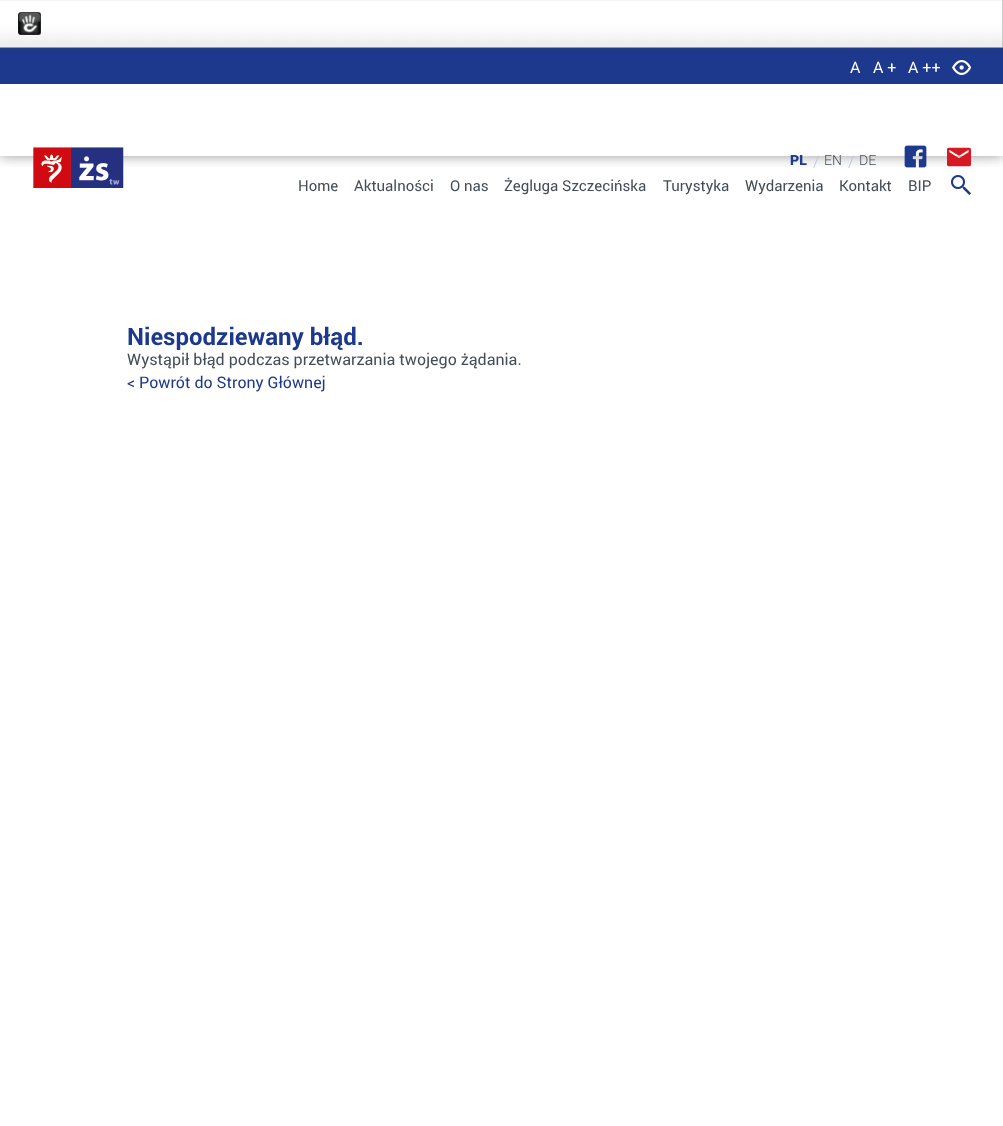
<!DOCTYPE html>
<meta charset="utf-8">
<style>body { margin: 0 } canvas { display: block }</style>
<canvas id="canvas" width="1003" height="1126"></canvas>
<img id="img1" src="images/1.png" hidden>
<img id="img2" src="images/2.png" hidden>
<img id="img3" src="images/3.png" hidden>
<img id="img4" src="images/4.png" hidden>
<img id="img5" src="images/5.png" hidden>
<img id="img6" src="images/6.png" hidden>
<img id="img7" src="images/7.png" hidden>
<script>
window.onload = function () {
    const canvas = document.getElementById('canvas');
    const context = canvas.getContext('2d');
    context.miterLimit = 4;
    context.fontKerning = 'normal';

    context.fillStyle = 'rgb(255, 255, 255)';
    context.fillRect(0, 0, 1003, 1126);
    context.save();
    context.beginPath();
    context.rect(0, 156, 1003, 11);
    context.clip();
    context.fillStyle = 'rgba(0, 0, 0, 0.4)';
    context.filter = 'blur(6.5px)';
    context.beginPath();
    context.rect(0, 84, 1003, 72);
    context.fill();
    context.filter = 'none';
    context.restore();
    context.fillStyle = 'rgb(29, 57, 141)';
    context.fillRect(0, 48, 1003, 36);
    context.drawImage(document.getElementById('img1'), 952, 60, 19, 15);
    context.drawImage(document.getElementById('img2'), 33, 147, 91, 41);
    context.drawImage(document.getElementById('img3'), 904, 145, 23, 23);
    context.drawImage(document.getElementById('img4'), 947, 147, 24, 20);
    context.drawImage(document.getElementById('img5'), 951, 175, 20, 20);
    context.fillStyle = 'rgba(90, 90, 90, 0.1)';
    context.filter = 'blur(1px)';
    context.beginPath();
    context.rect(0, 2, 1003, 48);
    context.fill();
    context.filter = 'none';
    context.drawImage(document.getElementById('img6'), 0, 0, 1002, 47);
    context.fillStyle = 'rgb(153, 153, 153)';
    context.fillRect(0, 47, 1003, 1);
    context.fillStyle = 'rgb(204, 204, 204)';
    context.fillRect(1002, 0, 1, 47);
    context.drawImage(document.getElementById('img7'), 18, 12, 23, 23);
    context.font = '16px Roboto';
    context.fillStyle = 'rgb(255, 255, 255)';
    context.fillText('A', 850, 73);
    context.fillText('A +', 873, 73);
    context.fillText('A ++', 908, 73);
    context.font = '900 14px Roboto';
    context.fillStyle = 'rgb(29, 57, 141)';
    context.fillText('PL', 790, 165);
    context.font = '300 16px Roboto';
    context.fillStyle = 'rgb(185, 194, 231)';
    context.fillText('/', 813, 167);
    context.font = '300 14px Roboto';
    context.fillStyle = 'rgb(67, 78, 88)';
    context.fillText('EN', 824, 165);
    context.font = '300 16px Roboto';
    context.fillStyle = 'rgb(185, 194, 231)';
    context.fillText('/', 848, 167);
    context.font = '300 14px Roboto';
    context.fillStyle = 'rgb(67, 78, 88)';
    context.fillText('DE', 859, 165);
    context.font = '15px Roboto';
    context.fillText('Home', 298, 191);
    context.fillText('Aktualności', 354, 191);
    context.fillText('O nas', 450, 191);
    context.fillText('Żegluga Szczecińska', 504, 191);
    context.fillText('Turystyka', 663, 191);
    context.fillText('Wydarzenia', 745, 191);
    context.fillText('Kontakt', 839, 191);
    context.fillText('BIP', 908, 191);
    context.font = 'bold 24px Roboto';
    context.fillStyle = 'rgb(29, 57, 141)';
    context.fillText('Niespodziewany błąd.', 127, 345);
    context.font = '16px Roboto';
    context.fillStyle = 'rgb(67, 78, 88)';
    context.fillText('Wystąpił błąd podczas przetwarzania twojego żądania.', 127, 365);
    context.fillStyle = 'rgb(29, 57, 141)';
    context.fillText('< Powrót do Strony Głównej', 127, 388);
};
</script>
